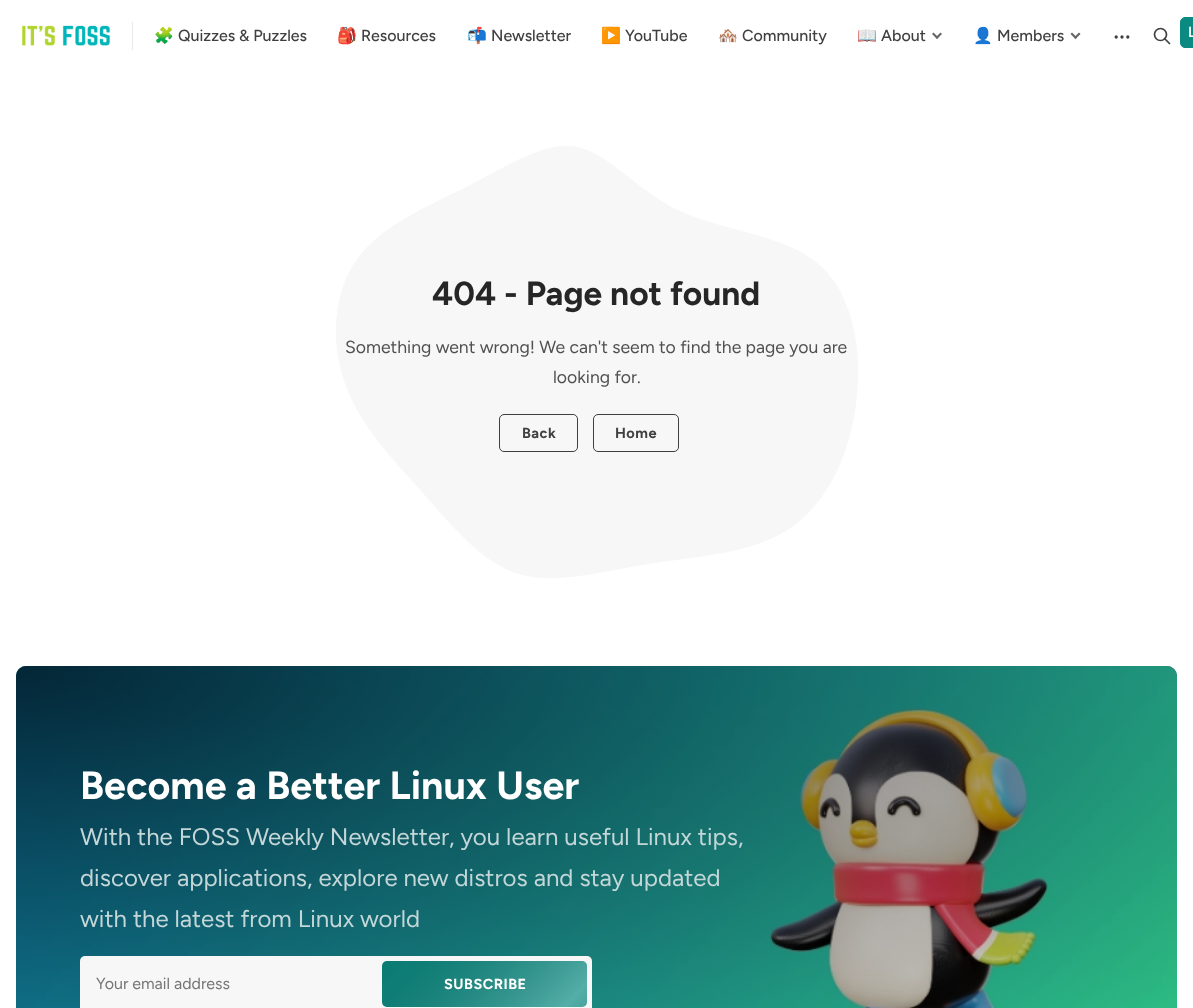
<!DOCTYPE html>
<meta charset="utf-8">
<style>body { margin: 0 } canvas { display: block }</style>
<canvas id="canvas" width="1193" height="1008"></canvas>
<img id="img1" src="images/1.png" hidden>
<img id="img2" src="images/2.png" hidden>
<script>
window.onload = function () {
    const canvas = document.getElementById('canvas');
    const context = canvas.getContext('2d');
    context.miterLimit = 4;
    context.fontKerning = 'normal';
    let gradient;

    context.fillStyle = 'rgb(255, 255, 255)';
    context.fillRect(0, 0, 1193, 1008);
    context.drawImage(document.getElementById('img1'), 22, 25, 88, 21);
    context.fillStyle = 'rgb(233, 233, 233)';
    context.fillRect(132, 22, 1, 28);
    context.fillStyle = 'rgb(102, 102, 102)';
    context.beginPath();
    context.moveTo(942, 34);
    context.lineTo(937, 39);
    context.lineTo(935.5, 37.5);
    context.lineTo(940.5, 32.5);
    context.closePath();
    context.fill();
    context.beginPath();
    context.moveTo(938.5, 37.5);
    context.lineTo(937, 39);
    context.lineTo(932, 34);
    context.lineTo(933.5, 32.5);
    context.closePath();
    context.fill();
    context.beginPath();
    context.moveTo(1080.5, 34);
    context.lineTo(1075.5, 39);
    context.lineTo(1074, 37.5);
    context.lineTo(1079, 32.5);
    context.closePath();
    context.fill();
    context.beginPath();
    context.moveTo(1077, 37.5);
    context.lineTo(1075.5, 39);
    context.lineTo(1070.5, 34);
    context.lineTo(1072, 32.5);
    context.closePath();
    context.fill();
    context.beginPath();
    context.arc(1116.2, 37, 0.8, 0, 2 * Math.PI);
    context.strokeStyle = 'rgb(64, 64, 64)';
    context.lineWidth = 1.7;
    context.stroke();
    context.beginPath();
    context.arc(1122, 37, 0.8, 0, 2 * Math.PI);
    context.stroke();
    context.beginPath();
    context.arc(1127.8, 37, 0.8, 0, 2 * Math.PI);
    context.stroke();
    context.beginPath();
    context.arc(1160.5, 34.5, 6, 0, 2 * Math.PI);
    context.stroke();
    context.beginPath();
    context.moveTo(1169.5, 43.5);
    context.lineTo(1164.5, 38.5);
    context.lineCap = 'round';
    context.lineJoin = 'round';
    context.stroke();
    context.fillStyle = 'rgb(10, 138, 129)';
    context.beginPath();
    context.roundRect(1180.5, 17.5, 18, 30, 4.5);
    context.fill();
    context.strokeStyle = 'rgb(10, 138, 129)';
    context.lineWidth = 1;
    context.lineJoin = 'miter';
    context.stroke();
    context.fillStyle = 'rgb(247, 247, 247)';
    context.beginPath();
    context.moveTo(680, 211);
    context.bezierCurveTo(723, 231, 781, 234, 816, 262);
    context.bezierCurveTo(851, 290, 862, 343, 857, 395);
    context.bezierCurveTo(852, 448, 831, 499, 792, 527);
    context.bezierCurveTo(754, 554, 698, 556, 649, 564);
    context.bezierCurveTo(599, 572, 555, 585, 519, 574);
    context.bezierCurveTo(482, 563, 453, 527, 423, 493);
    context.bezierCurveTo(392, 458, 359, 425, 345, 383);
    context.bezierCurveTo(330, 341, 333, 292, 358, 258);
    context.bezierCurveTo(383, 224, 429, 206, 470, 185);
    context.bezierCurveTo(511, 164, 547, 140, 578, 147);
    context.bezierCurveTo(610, 154, 637, 191, 680, 211);
    context.fill();
    context.beginPath();
    context.roundRect(499.5, 414.5, 78, 37, 4.5);
    context.strokeStyle = 'rgb(64, 64, 64)';
    context.stroke();
    context.beginPath();
    context.roundRect(593.5, 414.5, 85, 37, 4.5);
    context.stroke();
    context.fillStyle = 'rgb(64, 64, 64)';
    context.beginPath();
    context.roundRect(16, 666, 1161, 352, 10);
    context.fill();
    context.drawImage(document.getElementById('img2'), 16, 666, 1161, 342);
    gradient = context.createRadialGradient(16, 1749.72, 0, 16, 1749.72, 1642);
    gradient.addColorStop(0, 'rgba(0, 0, 0, 0.75)');
    gradient.addColorStop(1, 'rgba(0, 0, 0, 0)');
    context.fillStyle = gradient;
    context.beginPath();
    context.roundRect(16, 666, 1161, 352, 10);
    context.save();
    context.clip();
    context.scale(1, 625 / 1642);
    context.fillRect(0, 0, 1193, 2649);
    context.restore();
    context.fillStyle = 'rgb(247, 247, 247)';
    context.beginPath();
    context.roundRect(80, 956, 512, 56, 5);
    context.fill();
    context.fillStyle = 'rgb(10, 138, 129)';
    context.beginPath();
    context.roundRect(382, 961, 205, 46, 5);
    context.fill();
    gradient = context.createLinearGradient(473, 870, 701, 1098);
    gradient.addColorStop(0, 'rgba(0, 0, 0, 0.1)');
    gradient.addColorStop(0.5, 'rgba(255, 255, 255, 0.3)');
    gradient.addColorStop(1, 'rgba(0, 0, 0, 0.1)');
    context.fillStyle = gradient;
    context.beginPath();
    context.roundRect(382, 961, 205, 46, 5);
    context.fill();
    context.font = '16px Noto Color Emoji';
    context.fillStyle = 'rgb(64, 64, 64)';
    context.fillText('🧩', 154, 41);
    context.font = '500 16px Figtree';
    context.fillText('Quizzes & Puzzles', 178, 41);
    context.font = '16px Noto Color Emoji';
    context.fillText('🎒', 337, 41);
    context.font = '500 16px Figtree';
    context.fillText('Resources', 361, 41);
    context.font = '16px Noto Color Emoji';
    context.fillText('📬', 467, 41);
    context.font = '500 16px Figtree';
    context.fillText('Newsletter', 491, 41);
    context.font = '16px Noto Color Emoji';
    context.fillText('▶️', 601, 41);
    context.font = '500 16px Figtree';
    context.fillText('YouTube', 625, 41);
    context.font = '16px Noto Color Emoji';
    context.fillText('🏘️', 718, 41);
    context.font = '500 16px Figtree';
    context.fillText('Community', 742, 41);
    context.font = '16px Noto Color Emoji';
    context.fillText('📖', 857, 41);
    context.font = '500 16px Figtree';
    context.fillText('About', 881, 41);
    context.font = '16px Noto Color Emoji';
    context.fillText('👤', 973, 41);
    context.font = '500 16px Figtree';
    context.fillText('Members', 997, 41);
    context.letterSpacing = '0.5px';
    context.font = '600 14.5px Figtree';
    context.fillStyle = 'rgb(255, 255, 255)';
    context.fillText('L', 1188, 37);
    context.letterSpacing = '0px';
    context.font = 'bold 33.5px Figtree';
    context.fillStyle = 'rgb(38, 38, 38)';
    context.fillText('404 - Page not found', 432, 305);
    context.font = '17.6px Figtree';
    context.fillStyle = 'rgb(80, 80, 80)';
    context.fillText('Something went wrong! We can\'t seem to find the page you are', 345, 353);
    context.fillText('looking for.', 553, 383);
    context.letterSpacing = '0.5px';
    context.font = 'bold 14.5px Figtree';
    context.fillStyle = 'rgb(64, 64, 64)';
    context.fillText('Back', 522, 438);
    context.fillText('Home', 615, 438);
    context.letterSpacing = '0px';
    context.font = 'bold 39.4px Figtree';
    context.fillStyle = 'rgb(255, 255, 255)';
    context.fillText('Become a Better Linux User', 80, 799);
    context.font = '24.05px Figtree';
    context.fillStyle = 'rgb(195, 214, 216)';
    context.fillText('With the FOSS Weekly Newsletter, you learn useful Linux tips,', 80, 845);
    context.fillText('discover applications, explore new distros and stay updated', 80, 886);
    context.fillText('with the latest from Linux world', 80, 927);
    context.font = '16px Figtree';
    context.fillStyle = 'rgb(117, 117, 117)';
    context.fillText('Your email address', 96, 989);
    context.letterSpacing = '0.5px';
    context.font = 'bold 14.5px Figtree';
    context.fillStyle = 'rgb(255, 255, 255)';
    context.fillText('SUBSCRIBE', 444, 989);
};
</script>
